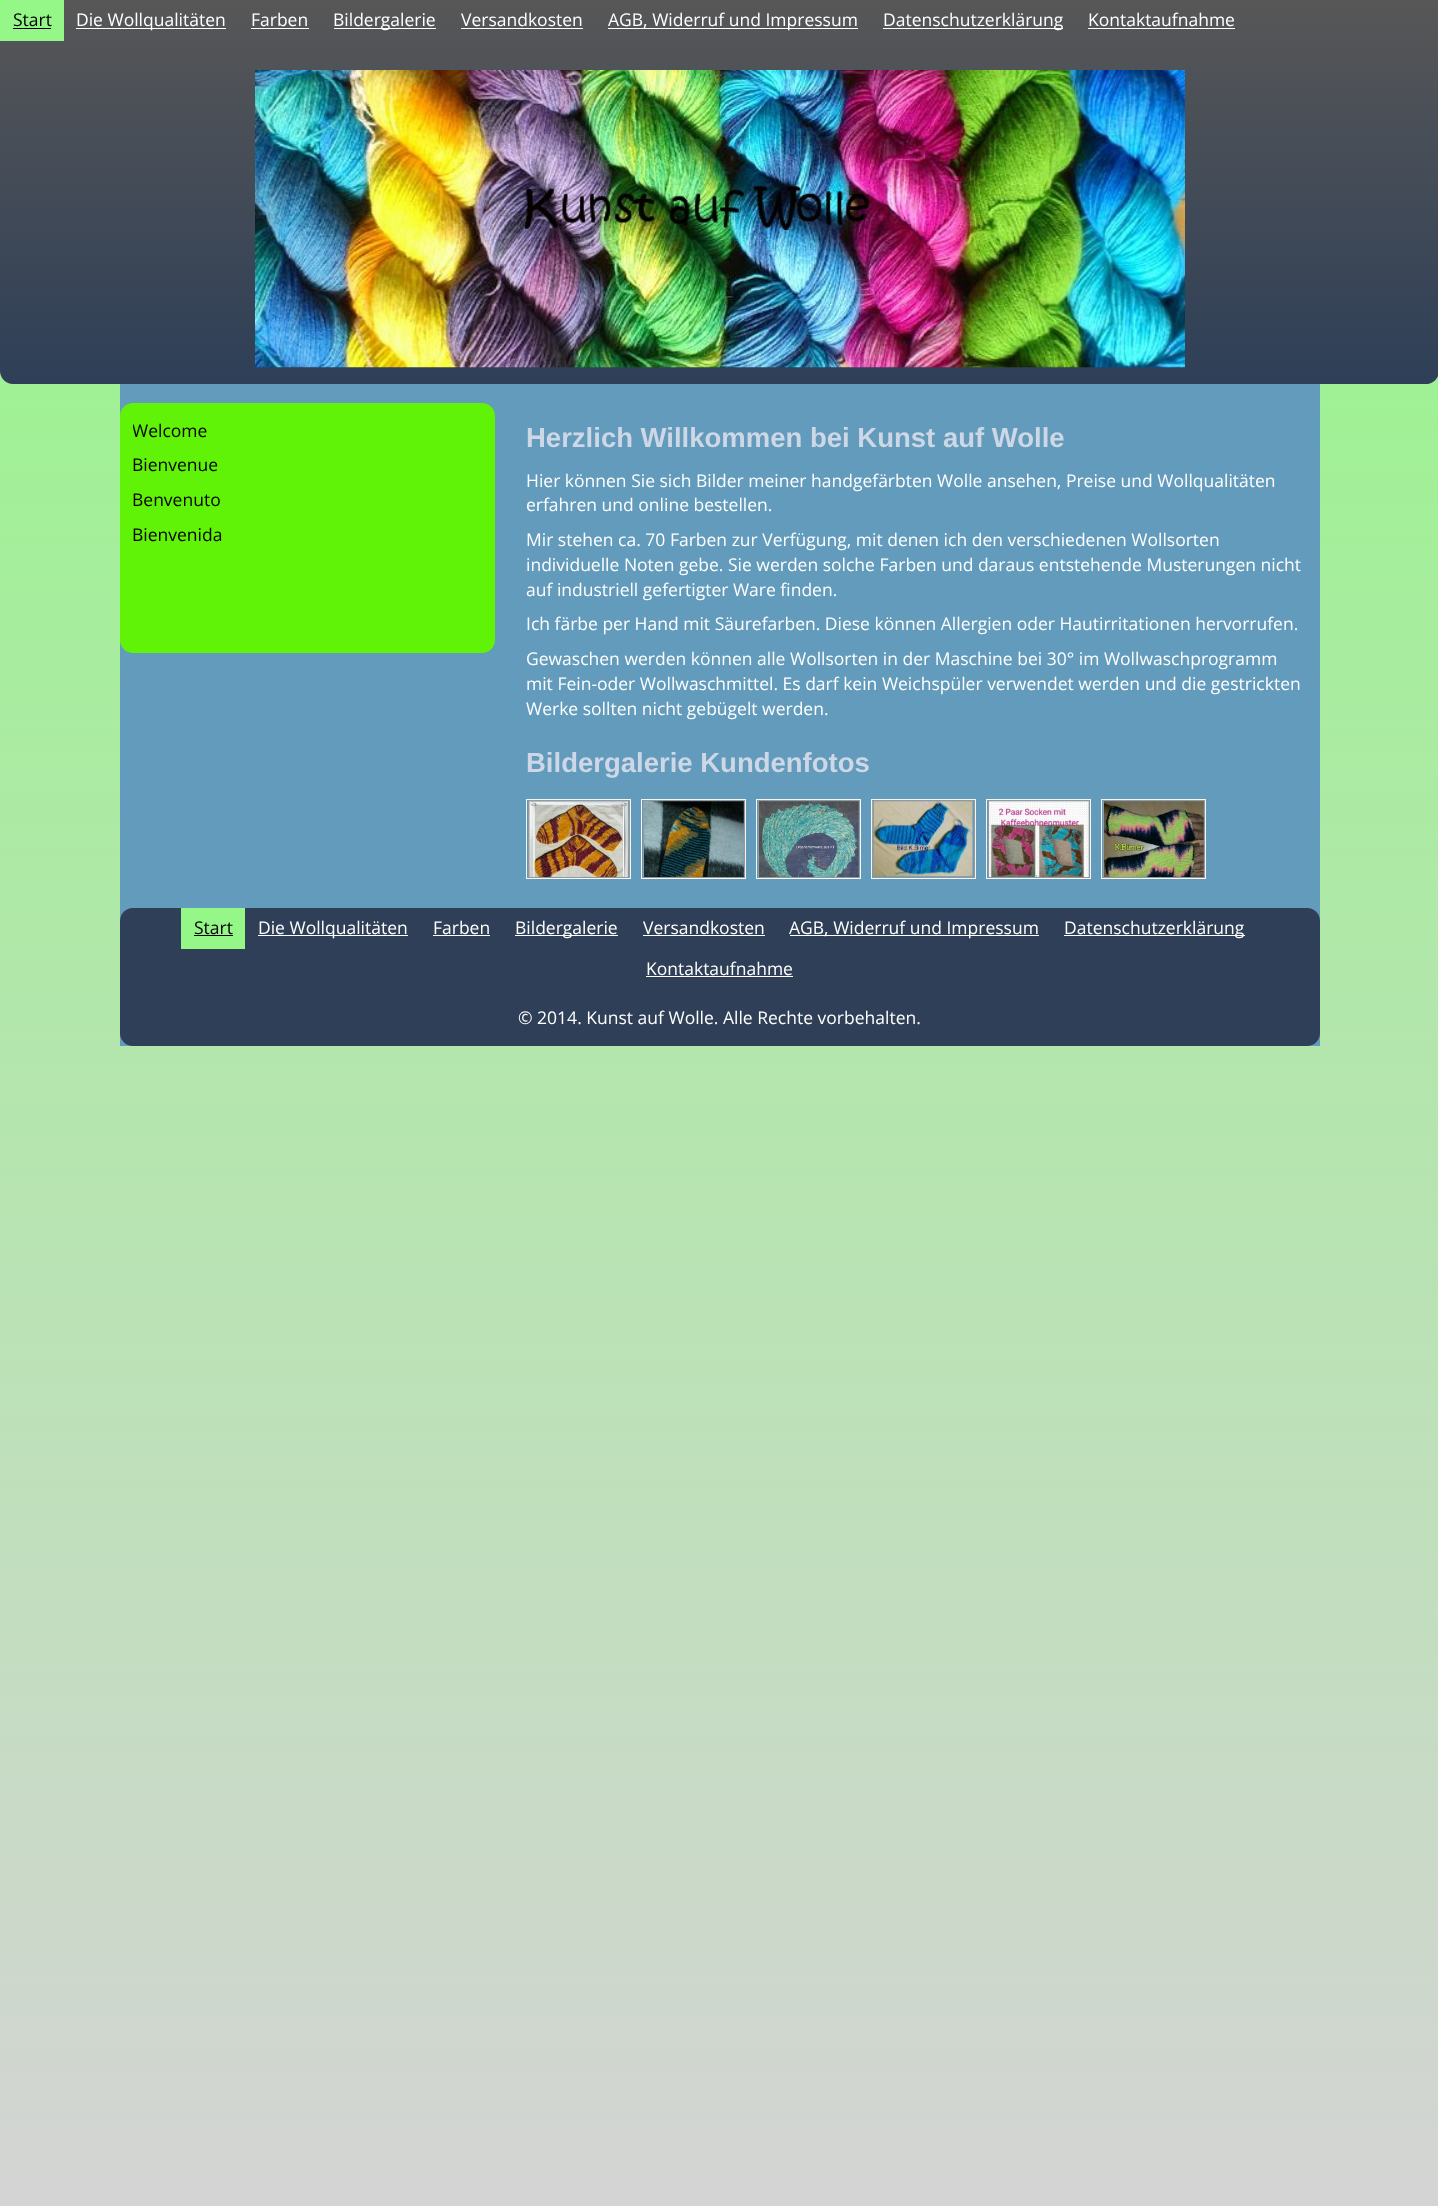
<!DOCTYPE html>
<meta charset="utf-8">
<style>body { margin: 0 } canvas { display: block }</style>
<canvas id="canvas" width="1438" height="2206"></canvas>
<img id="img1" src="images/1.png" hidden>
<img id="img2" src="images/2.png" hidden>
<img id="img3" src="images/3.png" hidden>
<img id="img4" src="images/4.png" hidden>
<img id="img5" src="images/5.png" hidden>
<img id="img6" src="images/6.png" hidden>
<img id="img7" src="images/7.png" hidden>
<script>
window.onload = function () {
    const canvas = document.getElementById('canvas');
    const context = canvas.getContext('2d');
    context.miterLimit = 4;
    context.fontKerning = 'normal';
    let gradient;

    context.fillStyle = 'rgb(255, 255, 255)';
    context.fillRect(0, 0, 1438, 2206);
    gradient = context.createLinearGradient(719, 2206, 719, 0);
    gradient.addColorStop(0, 'rgb(212, 212, 212)');
    gradient.addColorStop(1, 'rgb(149, 247, 136)');
    context.fillStyle = gradient;
    context.fillRect(0, 371, 1438, 1835);
    gradient = context.createLinearGradient(719, 0, 719, 384);
    gradient.addColorStop(0, 'rgb(87, 87, 87)');
    gradient.addColorStop(1, 'rgb(46, 63, 87)');
    context.fillStyle = gradient;
    context.beginPath();
    context.moveTo(0, 0);
    context.lineTo(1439, 0);
    context.lineTo(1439, 371);
    context.bezierCurveTo(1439, 378, 1433, 384, 1426, 384);
    context.lineTo(13, 384);
    context.bezierCurveTo(6, 384, 0, 378, 0, 371);
    context.closePath();
    context.fill();
    context.fillStyle = 'rgb(149, 247, 136)';
    context.fillRect(0, 0, 64, 41);
    context.fillStyle = 'rgb(0, 0, 0)';
    context.fillRect(13, 28, 38, 1);
    context.fillStyle = 'rgb(255, 255, 255)';
    context.fillRect(76, 28, 150, 1);
    context.fillRect(251, 28, 58, 1);
    context.fillRect(334, 28, 102, 1);
    context.fillRect(461, 28, 122, 1);
    context.fillRect(608, 28, 250, 1);
    context.fillRect(883, 28, 180, 1);
    context.fillRect(1088, 28, 147, 1);
    context.drawImage(document.getElementById('img1'), 255, 70, 930, 298);
    context.fillStyle = 'rgb(98, 155, 187)';
    context.fillRect(120, 384, 1200, 662);
    context.fillStyle = 'rgb(96, 242, 7)';
    context.beginPath();
    context.roundRect(120, 403, 375, 250, 13);
    context.fill();
    context.strokeStyle = 'rgb(245, 245, 245)';
    context.strokeRect(526.5, 799.5, 104, 79);
    context.drawImage(document.getElementById('img2'), 529, 801, 100, 76);
    context.strokeStyle = 'rgb(152, 152, 152)';
    context.strokeRect(528.5, 800.5, 101, 77);
    context.strokeStyle = 'rgb(245, 245, 245)';
    context.strokeRect(641.5, 799.5, 104, 79);
    context.drawImage(document.getElementById('img3'), 644, 801, 100, 76);
    context.strokeStyle = 'rgb(152, 152, 152)';
    context.strokeRect(643.5, 800.5, 101, 77);
    context.strokeStyle = 'rgb(245, 245, 245)';
    context.strokeRect(756.5, 799.5, 104, 79);
    context.drawImage(document.getElementById('img4'), 759, 801, 100, 76);
    context.strokeStyle = 'rgb(152, 152, 152)';
    context.strokeRect(758.5, 800.5, 101, 77);
    context.strokeStyle = 'rgb(245, 245, 245)';
    context.strokeRect(871.5, 799.5, 104, 79);
    context.drawImage(document.getElementById('img5'), 872, 801, 101, 76);
    context.strokeStyle = 'rgb(152, 152, 152)';
    context.strokeRect(873.5, 800.5, 101, 77);
    context.strokeStyle = 'rgb(245, 245, 245)';
    context.strokeRect(986.5, 799.5, 104, 79);
    context.drawImage(document.getElementById('img6'), 989, 801, 100, 76);
    context.strokeStyle = 'rgb(152, 152, 152)';
    context.strokeRect(988.5, 800.5, 101, 77);
    context.strokeStyle = 'rgb(245, 245, 245)';
    context.strokeRect(1101.5, 799.5, 104, 79);
    context.drawImage(document.getElementById('img7'), 1104, 801, 100, 76);
    context.strokeStyle = 'rgb(152, 152, 152)';
    context.strokeRect(1103.5, 800.5, 101, 77);
    context.fillStyle = 'rgb(46, 63, 87)';
    context.beginPath();
    context.roundRect(120, 908, 1200, 138, 13);
    context.fill();
    context.fillStyle = 'rgb(149, 247, 136)';
    context.fillRect(181, 908, 64, 41);
    context.fillStyle = 'rgb(0, 0, 0)';
    context.fillRect(194, 935, 39, 1);
    context.fillStyle = 'rgb(255, 255, 255)';
    context.fillRect(258, 935, 150, 1);
    context.fillRect(433, 935, 57, 1);
    context.fillRect(515, 935, 103, 1);
    context.fillRect(643, 935, 122, 1);
    context.fillRect(790, 935, 249, 1);
    context.fillRect(1064, 935, 181, 1);
    context.fillRect(646, 976, 147, 1);
    context.font = '17.5px Open Sans';
    context.fillStyle = 'rgb(0, 0, 0)';
    context.fillText('Start', 13, 26);
    context.fillStyle = 'rgb(255, 255, 255)';
    context.fillText('Die Wollqualitäten', 76, 26);
    context.fillText('Farben', 251, 26);
    context.fillText('Bildergalerie', 333, 26);
    context.fillText('Versandkosten', 461, 26);
    context.fillText('AGB, Widerruf und Impressum', 608, 26);
    context.fillText('Datenschutzerklärung', 883, 26);
    context.fillText('Kontaktaufnahme', 1088, 26);
    context.save();
    context.beginPath();
    context.rect(133, 409, 350, 147);
    context.clip();
    context.fillStyle = 'rgb(0, 0, 0)';
    context.fillText('Welcome', 132, 437);
    context.restore();
    context.fillStyle = 'rgb(0, 0, 0)';
    context.fillText('Bienvenue', 132, 471);
    context.fillText('Benvenuto', 132, 506);
    context.fillText('Bienvenida', 132, 541);
    context.font = 'bold 27.5px Liberation Sans';
    context.fillStyle = 'rgb(206, 215, 229)';
    context.fillText('Herzlich Willkommen bei Kunst auf Wolle', 526, 447);
    context.font = '17.5px Open Sans';
    context.fillStyle = 'rgb(255, 255, 255)';
    context.fillText('Hier können Sie sich Bilder meiner handgefärbten Wolle ansehen, Preise und Wollqualitäten', 526, 487);
    context.fillText('erfahren und online bestellen.', 526, 511);
    context.fillText('Mir stehen ca. 70 Farben zur Verfügung, mit denen ich den verschiedenen Wollsorten', 526, 546);
    context.fillText('individuelle Noten gebe. Sie werden solche Farben und daraus entstehende Musterungen nicht', 526, 571);
    context.fillText('auf industriell gefertigter Ware finden.', 526, 596);
    context.fillText('Ich färbe per Hand mit Säurefarben. Diese können Allergien oder Hautirritationen hervorrufen.', 526, 630);
    context.fillText('Gewaschen werden können alle Wollsorten in der Maschine bei 30° im Wollwaschprogramm', 526, 665);
    context.fillText('mit Fein-oder Wollwaschmittel. Es darf kein Weichspüler verwendet werden und die gestrickten', 526, 690);
    context.fillText('Werke sollten nicht gebügelt werden.', 526, 715);
    context.font = 'bold 27.5px Liberation Sans';
    context.fillStyle = 'rgb(206, 215, 229)';
    context.fillText('Bildergalerie Kundenfotos', 526, 772);
    context.font = '17.5px Open Sans';
    context.fillStyle = 'rgb(0, 0, 0)';
    context.fillText('Start', 194, 934);
    context.fillStyle = 'rgb(255, 255, 255)';
    context.fillText('Die Wollqualitäten', 258, 934);
    context.fillText('Farben', 433, 934);
    context.fillText('Bildergalerie', 515, 934);
    context.fillText('Versandkosten', 643, 934);
    context.fillText('AGB, Widerruf und Impressum', 789, 934);
    context.fillText('Datenschutzerklärung', 1064, 934);
    context.fillText('Kontaktaufnahme', 646, 975);
    context.fillText('© 2014. Kunst auf Wolle. Alle Rechte vorbehalten.', 518, 1024);
};
</script>
